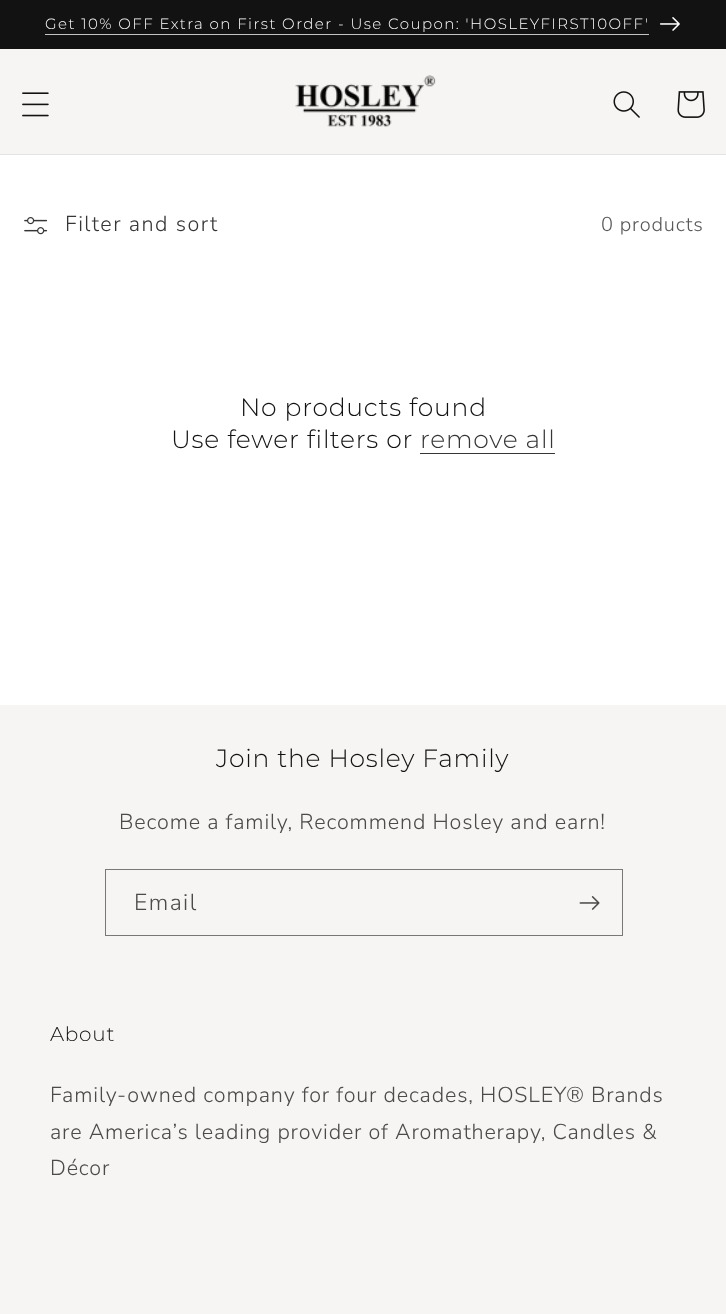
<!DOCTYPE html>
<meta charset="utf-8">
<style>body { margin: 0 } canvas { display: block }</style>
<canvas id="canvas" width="726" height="1314"></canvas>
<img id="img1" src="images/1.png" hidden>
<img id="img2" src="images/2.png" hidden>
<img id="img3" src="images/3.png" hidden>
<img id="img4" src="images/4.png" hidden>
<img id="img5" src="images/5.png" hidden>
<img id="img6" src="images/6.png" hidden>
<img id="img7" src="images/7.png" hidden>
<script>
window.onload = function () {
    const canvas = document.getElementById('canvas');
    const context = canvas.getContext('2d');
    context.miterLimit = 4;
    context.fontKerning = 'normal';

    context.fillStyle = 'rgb(255, 255, 255)';
    context.fillRect(0, 0, 726, 1314);
    context.fillStyle = 'rgb(18, 18, 18)';
    context.fillRect(0, 0, 726, 49);
    context.fillStyle = 'rgb(196, 196, 196)';
    context.fillRect(45, 34, 604, 1);
    context.drawImage(document.getElementById('img1'), 660, 17, 20, 14);
    context.fillStyle = 'rgb(246, 245, 243)';
    context.fillRect(0, 49, 726, 105);
    context.fillStyle = 'rgb(228, 227, 225)';
    context.fillRect(0, 154, 726, 1);
    context.drawImage(document.getElementById('img2'), 22, 92, 27, 25);
    context.drawImage(document.getElementById('img3'), 295, 75, 141, 52);
    context.drawImage(document.getElementById('img4'), 613, 91, 27, 27);
    context.drawImage(document.getElementById('img5'), 677, 91, 28, 27);
    context.drawImage(document.getElementById('img6'), 24, 217, 24, 18);
    context.fillStyle = 'rgb(54, 54, 54)';
    context.fillRect(420, 453, 135, 1);
    context.fillStyle = 'rgb(246, 245, 243)';
    context.fillRect(0, 705, 726, 609);
    context.strokeStyle = 'rgb(121, 120, 119)';
    context.strokeRect(105.5, 869.5, 517, 66);
    context.drawImage(document.getElementById('img7'), 579, 896, 21, 14);
    context.letterSpacing = '1.45px';
    context.font = '300 15px Montserrat';
    context.fillStyle = 'rgb(255, 255, 255)';
    context.fillText('Get 10% OFF Extra on First Order - Use Coupon: \'HOSLEYFIRST10OFF\'', 45, 29);
    context.font = '300 21.55px Nunito Sans';
    context.fillStyle = 'rgb(54, 54, 54)';
    context.fillText('Filter and sort', 65, 231);
    context.letterSpacing = '0.85px';
    context.font = '300 20px Nunito Sans';
    context.fillStyle = 'rgb(89, 89, 89)';
    context.fillText('0 products', 601, 231);
    context.letterSpacing = '0.75px';
    context.font = '300 25px Montserrat';
    context.fillStyle = 'rgb(18, 18, 18)';
    context.fillText('No products found', 240, 416);
    context.fillText('Use fewer filters or', 171, 448);
    context.fillStyle = 'rgb(54, 54, 54)';
    context.fillText('remove all', 420, 448);
    context.fillStyle = 'rgb(18, 18, 18)';
    context.fillText('Join the Hosley Family', 216, 767);
    context.letterSpacing = '0.85px';
    context.font = '300 21.55px Nunito Sans';
    context.fillStyle = 'rgb(75, 75, 74)';
    context.fillText('Become a family, Recommend Hosley and earn!', 119, 829);
    context.letterSpacing = '1.45px';
    context.font = '300 23px Nunito Sans';
    context.fillText('Email', 134, 910);
    context.letterSpacing = '0.75px';
    context.font = '300 20px Montserrat';
    context.fillStyle = 'rgb(18, 18, 18)';
    context.fillText('About', 50, 1041);
    context.letterSpacing = '0.85px';
    context.font = '300 21.55px Nunito Sans';
    context.fillStyle = 'rgb(75, 75, 74)';
    context.fillText('Family-owned company for four decades, HOSLEY® Brands', 50, 1102);
    context.fillText('are America’s leading provider of Aromatherapy, Candles &', 50, 1139);
    context.fillText('Décor', 50, 1175);
};
</script>
